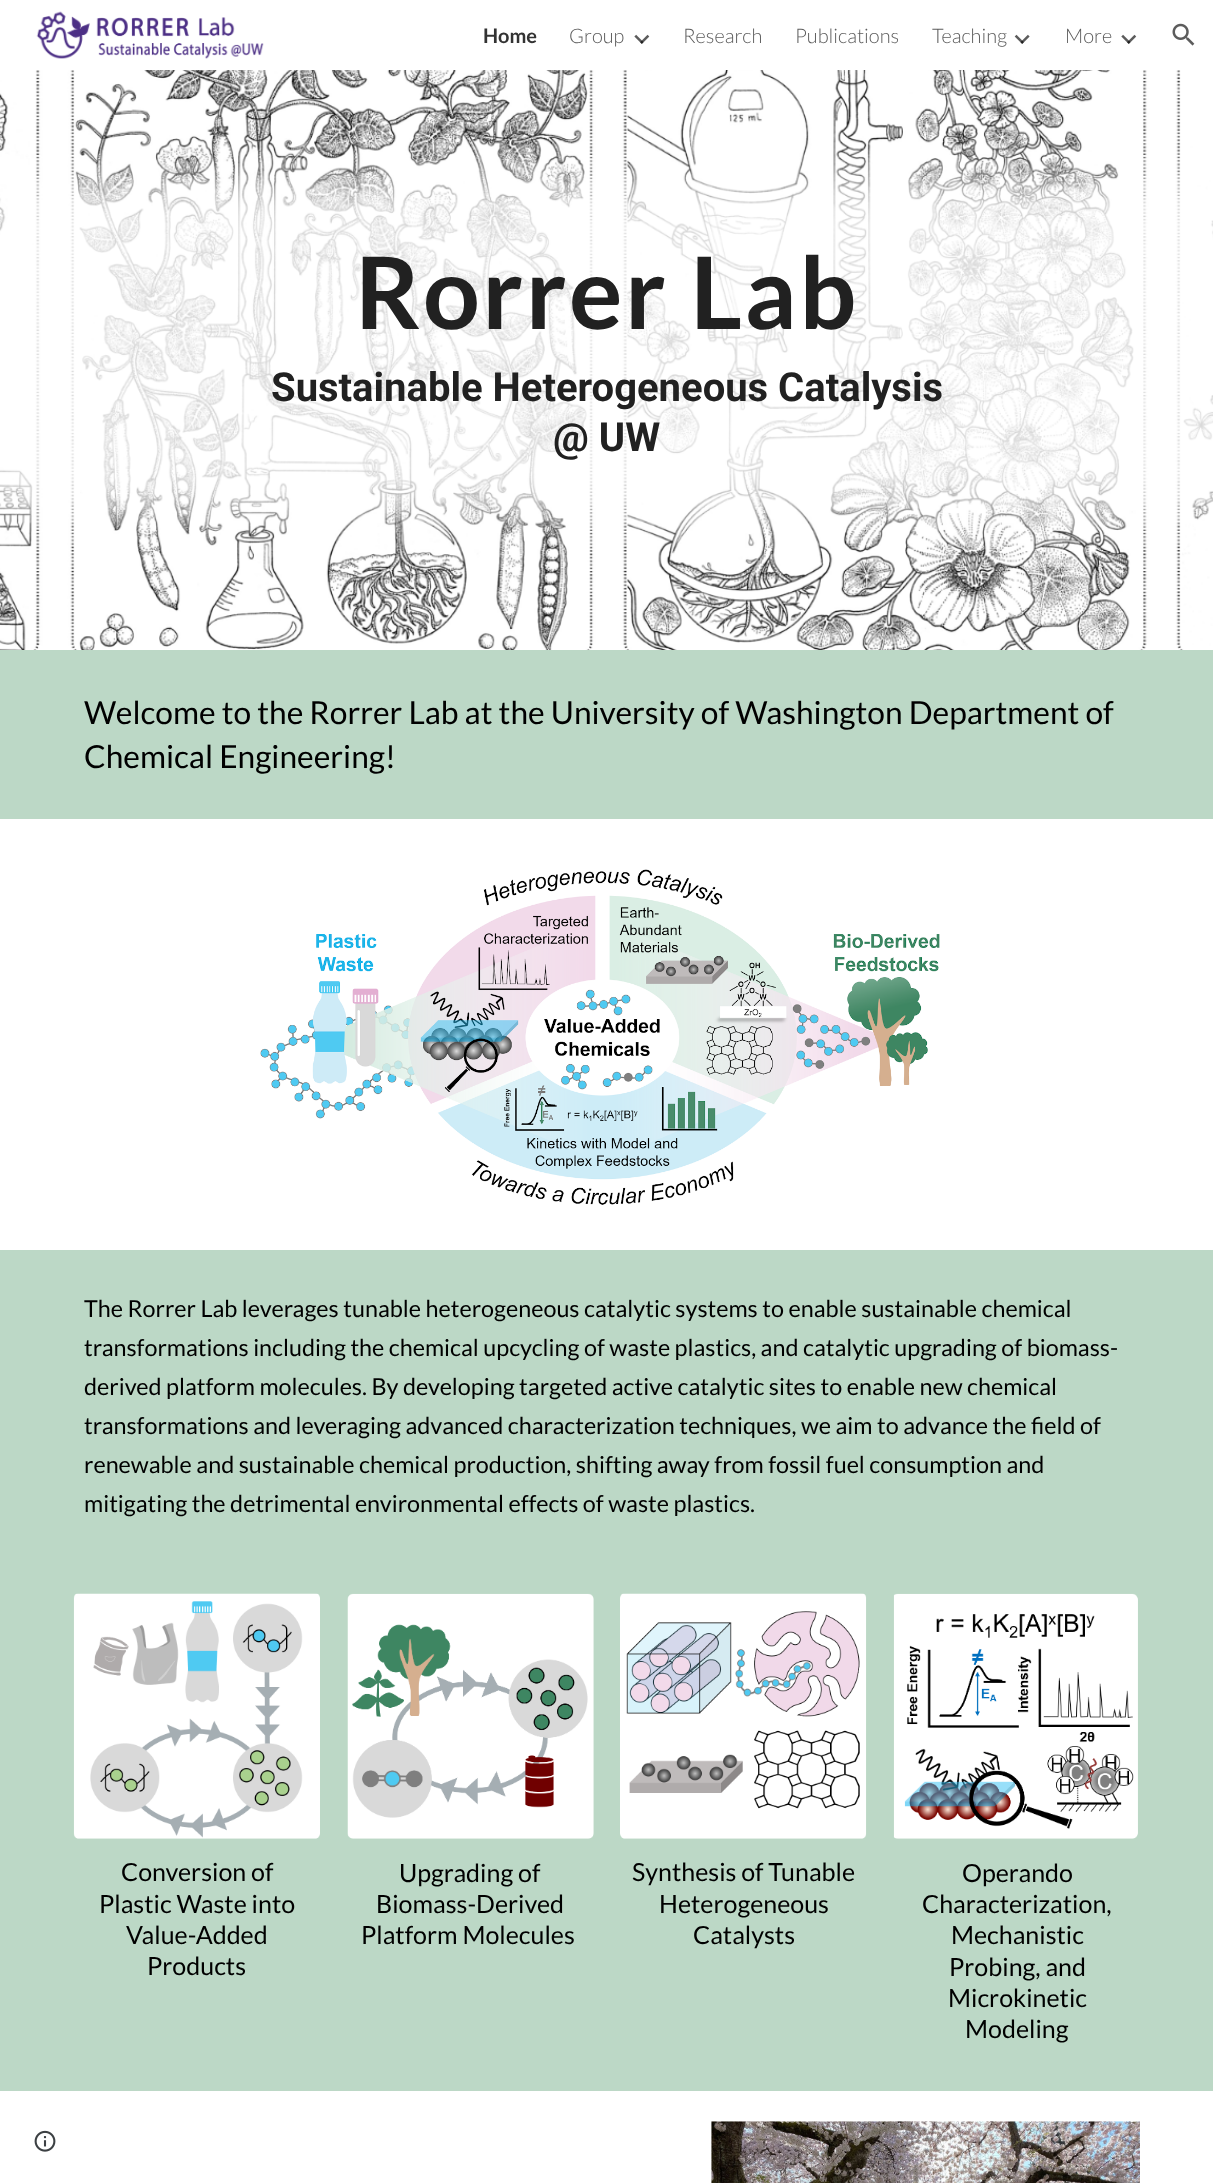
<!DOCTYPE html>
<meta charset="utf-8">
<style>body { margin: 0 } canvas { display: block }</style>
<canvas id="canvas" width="1213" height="2183"></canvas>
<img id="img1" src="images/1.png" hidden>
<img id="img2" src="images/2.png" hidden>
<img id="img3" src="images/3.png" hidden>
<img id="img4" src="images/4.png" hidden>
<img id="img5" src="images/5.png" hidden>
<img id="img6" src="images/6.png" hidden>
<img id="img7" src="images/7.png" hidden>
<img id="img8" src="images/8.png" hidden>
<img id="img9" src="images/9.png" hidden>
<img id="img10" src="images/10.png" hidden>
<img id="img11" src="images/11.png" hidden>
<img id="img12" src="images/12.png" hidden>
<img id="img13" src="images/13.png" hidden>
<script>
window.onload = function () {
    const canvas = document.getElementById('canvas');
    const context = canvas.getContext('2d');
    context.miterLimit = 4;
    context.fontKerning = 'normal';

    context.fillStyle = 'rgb(255, 255, 255)';
    context.fillRect(0, 0, 1213, 2183);
    context.drawImage(document.getElementById('img1'), 36, 11, 228, 48);
    context.drawImage(document.getElementById('img2'), 634, 34, 16, 10);
    context.drawImage(document.getElementById('img3'), 1014, 34, 16, 10);
    context.drawImage(document.getElementById('img4'), 1121, 34, 16, 10);
    context.drawImage(document.getElementById('img5'), 1172, 23, 23, 23);
    context.drawImage(document.getElementById('img6'), 0, 70, 1213, 580);
    context.fillStyle = 'rgb(188, 216, 198)';
    context.fillRect(0, 650, 1213, 169);
    context.drawImage(document.getElementById('img7'), 260, 869, 680, 336);
    context.fillRect(0, 1250, 1213, 841);
    context.drawImage(document.getElementById('img8'), 73, 1593, 247, 246);
    context.drawImage(document.getElementById('img9'), 347, 1593, 247, 246);
    context.drawImage(document.getElementById('img10'), 620, 1593, 247, 246);
    context.drawImage(document.getElementById('img11'), 893, 1593, 245, 246);
    context.drawImage(document.getElementById('img12'), 711, 2121, 429, 62);
    context.drawImage(document.getElementById('img13'), 34, 2130, 22, 22);
    context.font = 'bold 20px Lato';
    context.fillStyle = 'rgb(51, 51, 51)';
    context.fillText('Home', 483, 43);
    context.font = '300 20px Lato';
    context.fillStyle = 'rgb(92, 92, 92)';
    context.fillText('Group', 569, 43);
    context.fillText('Research', 683, 43);
    context.fillText('Publications', 795, 43);
    context.fillText('Teaching', 932, 43);
    context.fillText('More', 1065, 43);
    context.letterSpacing = '2.5px';
    context.font = 'bold 100px Lato';
    context.fillStyle = 'rgb(33, 33, 33)';
    context.fillText('Rorrer Lab', 355, 329);
    context.letterSpacing = '0px';
    context.font = 'bold 40px Roboto';
    context.fillText('Sustainable Heterogeneous Catalysis', 271, 401);
    context.fillText('@ UW', 553, 451);
    context.font = '31.7px Lato';
    context.fillStyle = 'rgb(0, 0, 0)';
    context.fillText('Welcome to the Rorrer Lab at the University of Washington Department of', 84, 724);
    context.fillText('Chemical Engineering!', 84, 768);
    context.font = '23.35px Lato';
    context.fillText('The Rorrer Lab leverages tunable heterogeneous catalytic systems to enable sustainable chemical', 84, 1317);
    context.fillText('transformations including the chemical upcycling of waste plastics, and catalytic upgrading of biomass-', 84, 1356);
    context.fillText('derived platform molecules. By developing targeted active catalytic sites to enable new chemical', 84, 1395);
    context.fillText('transformations and leveraging advanced characterization techniques, we aim to advance the field of', 84, 1434);
    context.fillText('renewable and sustainable chemical production, shifting away from fossil fuel consumption and', 84, 1473);
    context.fillText('mitigating the detrimental environmental effects of waste plastics.', 84, 1512);
    context.font = '25px Lato';
    context.fillText('Conversion of', 121, 1881);
    context.fillText('Plastic Waste into', 99, 1913);
    context.fillText('Value-Added', 126, 1944);
    context.fillText('Products', 147, 1975);
    context.fillText('Upgrading of', 399, 1882);
    context.fillText('Biomass-Derived', 376, 1913);
    context.fillText('Platform Molecules', 361, 1944);
    context.fillText('Synthesis of Tunable', 632, 1881);
    context.fillText('Heterogeneous', 659, 1913);
    context.fillText('Catalysts', 693, 1944);
    context.fillText('Operando', 962, 1882);
    context.fillText('Characterization,', 922, 1913);
    context.fillText('Mechanistic', 951, 1944);
    context.fillText('Probing, and', 949, 1976);
    context.fillText('Microkinetic', 948, 2007);
    context.fillText('Modeling', 965, 2038);
};
</script>
